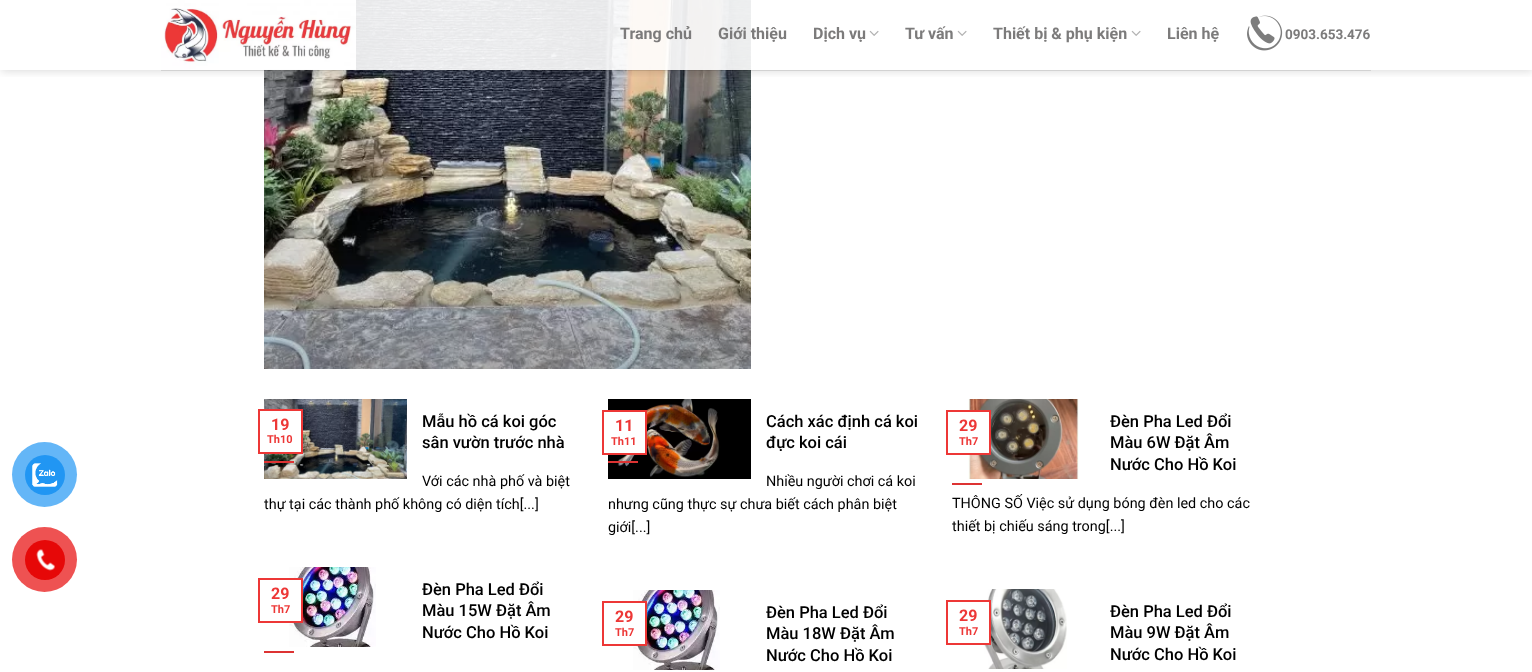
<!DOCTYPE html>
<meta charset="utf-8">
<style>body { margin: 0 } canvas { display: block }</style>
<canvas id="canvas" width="1532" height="672"></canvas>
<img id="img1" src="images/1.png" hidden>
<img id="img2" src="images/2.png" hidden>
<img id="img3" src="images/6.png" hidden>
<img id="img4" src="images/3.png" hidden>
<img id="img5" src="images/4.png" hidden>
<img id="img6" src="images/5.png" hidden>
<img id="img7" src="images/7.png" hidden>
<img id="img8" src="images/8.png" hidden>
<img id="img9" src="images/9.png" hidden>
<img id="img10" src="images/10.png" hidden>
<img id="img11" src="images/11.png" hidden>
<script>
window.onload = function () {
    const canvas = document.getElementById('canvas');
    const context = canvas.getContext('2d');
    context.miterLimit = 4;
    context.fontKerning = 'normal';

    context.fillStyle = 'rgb(255, 255, 255)';
    context.fillRect(0, 0, 1532, 672);
    context.fillStyle = 'rgb(100, 182, 247)';
    context.beginPath();
    context.arc(44.5, 474.5, 32.5, 0, 2 * Math.PI);
    context.fill();
    context.fillStyle = 'rgb(33, 150, 243)';
    context.beginPath();
    context.arc(45, 475, 20, 0, 2 * Math.PI);
    context.fill();
    context.drawImage(document.getElementById('img1'), 32, 463, 26, 24);
    context.fillStyle = 'rgb(238, 82, 82)';
    context.beginPath();
    context.arc(44.5, 559.5, 32.5, 0, 2 * Math.PI);
    context.fill();
    context.fillStyle = 'rgb(230, 8, 8)';
    context.beginPath();
    context.arc(45, 560, 20, 0, 2 * Math.PI);
    context.fill();
    context.drawImage(document.getElementById('img2'), 36, 549, 19, 22);
    context.drawImage(document.getElementById('img3'), 264, 0, 487, 369);
    context.save();
    context.beginPath();
    context.rect(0, 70, 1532, 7);
    context.clip();
    context.fillStyle = 'rgba(0, 0, 0, 0.15)';
    context.filter = 'blur(5px)';
    context.beginPath();
    context.rect(1, 1, 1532, 70);
    context.fill();
    context.filter = 'none';
    context.restore();
    context.fillStyle = 'rgba(255, 255, 255, 0.9)';
    context.fillRect(264, 0, 487, 70);
    context.drawImage(document.getElementById('img4'), 161, 0, 195, 70);
    context.drawImage(document.getElementById('img5'), 869, 30, 10, 6);
    context.drawImage(document.getElementById('img5'), 957, 30, 10, 6);
    context.drawImage(document.getElementById('img5'), 1131, 30, 10, 6);
    context.drawImage(document.getElementById('img6'), 1247, 15, 36, 36);
    context.fillStyle = 'rgba(0, 0, 0, 0.1)';
    context.fillRect(161, 70, 1210, 1);
    context.drawImage(document.getElementById('img7'), 264, 399, 143, 80);
    context.fillStyle = 'rgb(221, 51, 51)';
    context.fillRect(264, 461, 30, 2);
    context.fillStyle = 'rgb(255, 255, 255)';
    context.fillRect(264, 411, 37, 41);
    context.strokeStyle = 'rgb(237, 55, 54)';
    context.lineWidth = 2;
    context.strokeRect(259, 410, 43, 43);
    context.drawImage(document.getElementById('img8'), 608, 399, 143, 80);
    context.fillStyle = 'rgb(221, 51, 51)';
    context.fillRect(608, 461, 30, 2);
    context.fillStyle = 'rgb(255, 255, 255)';
    context.fillRect(608, 412, 37, 41);
    context.strokeRect(603, 411, 43, 43);
    context.drawImage(document.getElementById('img9'), 968, 399, 111, 80);
    context.fillStyle = 'rgb(221, 51, 51)';
    context.fillRect(952, 483, 30, 2);
    context.fillStyle = 'rgb(255, 255, 255)';
    context.fillRect(968, 412, 21, 41);
    context.strokeRect(947, 411, 43, 43);
    context.drawImage(document.getElementById('img10'), 289, 567, 87, 80);
    context.fillRect(289, 580, 12, 41);
    context.strokeRect(259, 579, 43, 43);
    context.fillStyle = 'rgb(221, 51, 51)';
    context.fillRect(264, 651, 30, 2);
    context.drawImage(document.getElementById('img10'), 633, 590, 87, 80);
    context.fillStyle = 'rgb(255, 255, 255)';
    context.fillRect(633, 603, 12, 41);
    context.strokeRect(603, 602, 43, 43);
    context.drawImage(document.getElementById('img11'), 977, 589, 90, 80);
    context.fillRect(977, 602, 12, 41);
    context.strokeRect(947, 601, 43, 43);
    context.font = 'bold 16px Roboto';
    context.fillStyle = 'rgb(124, 123, 123)';
    context.fillText('Trang chủ', 620, 39);
    context.fillText('Giới thiệu', 718, 39);
    context.fillText('Dịch vụ', 813, 39);
    context.fillText('Tư vấn', 905, 39);
    context.fillText('Thiết bị & phụ kiện', 993, 39);
    context.fillText('Liên hệ', 1167, 39);
    context.font = 'bold 13.5px Roboto';
    context.fillText('0903.653.476', 1285, 39);
    context.font = '500 16.5px Roboto';
    context.fillStyle = 'rgb(0, 0, 0)';
    context.fillText('Mẫu hồ cá koi góc', 422, 427);
    context.fillText('sân vườn trước nhà', 422, 448);
    context.font = '14.4px Roboto';
    context.fillText('Với các nhà phố và biệt', 422, 486);
    context.fillText('thự tại các thành phố không có diện tích[...]', 264, 509);
    context.font = 'bold 16px Roboto';
    context.fillStyle = 'rgb(237, 55, 54)';
    context.fillText('19', 271, 430);
    context.font = 'bold 11px Roboto';
    context.fillText('Th10', 267, 443);
    context.font = '500 16.5px Roboto';
    context.fillStyle = 'rgb(0, 0, 0)';
    context.fillText('Cách xác định cá koi', 766, 427);
    context.fillText('đực koi cái', 766, 448);
    context.font = '14.4px Roboto';
    context.fillText('Nhiều người chơi cá koi', 766, 486);
    context.fillText('nhưng cũng thực sự chưa biết cách phân biệt', 608, 509);
    context.fillText('giới[...]', 608, 532);
    context.font = 'bold 16px Roboto';
    context.fillStyle = 'rgb(237, 55, 54)';
    context.fillText('11', 615, 431);
    context.font = 'bold 11px Roboto';
    context.fillText('Th11', 611, 445);
    context.font = '500 16.5px Roboto';
    context.fillStyle = 'rgb(0, 0, 0)';
    context.fillText('Đèn Pha Led Đổi', 1110, 427);
    context.fillText('Màu 6W Đặt Âm', 1110, 448);
    context.fillText('Nước Cho Hồ Koi', 1110, 470);
    context.font = '14.4px Roboto';
    context.fillText('THÔNG SỐ Việc sử dụng bóng đèn led cho các', 952, 508);
    context.fillText('thiết bị chiếu sáng trong[...]', 952, 531);
    context.font = 'bold 16px Roboto';
    context.fillStyle = 'rgb(237, 55, 54)';
    context.fillText('29', 959, 431);
    context.font = 'bold 11px Roboto';
    context.fillText('Th7', 959, 445);
    context.font = 'bold 16px Roboto';
    context.fillText('29', 271, 599);
    context.font = 'bold 11px Roboto';
    context.fillText('Th7', 271, 613);
    context.font = '500 16.5px Roboto';
    context.fillStyle = 'rgb(0, 0, 0)';
    context.fillText('Đèn Pha Led Đổi', 422, 595);
    context.fillText('Màu 15W Đặt Âm', 422, 616);
    context.fillText('Nước Cho Hồ Koi', 422, 638);
    context.font = 'bold 16px Roboto';
    context.fillStyle = 'rgb(237, 55, 54)';
    context.fillText('29', 615, 622);
    context.font = 'bold 11px Roboto';
    context.fillText('Th7', 615, 636);
    context.font = '500 16.5px Roboto';
    context.fillStyle = 'rgb(0, 0, 0)';
    context.fillText('Đèn Pha Led Đổi', 766, 618);
    context.fillText('Màu 18W Đặt Âm', 766, 639);
    context.fillText('Nước Cho Hồ Koi', 766, 661);
    context.font = 'bold 16px Roboto';
    context.fillStyle = 'rgb(237, 55, 54)';
    context.fillText('29', 959, 621);
    context.font = 'bold 11px Roboto';
    context.fillText('Th7', 959, 635);
    context.font = '500 16.5px Roboto';
    context.fillStyle = 'rgb(0, 0, 0)';
    context.fillText('Đèn Pha Led Đổi', 1110, 617);
    context.fillText('Màu 9W Đặt Âm', 1110, 638);
    context.fillText('Nước Cho Hồ Koi', 1110, 660);
};
</script>
